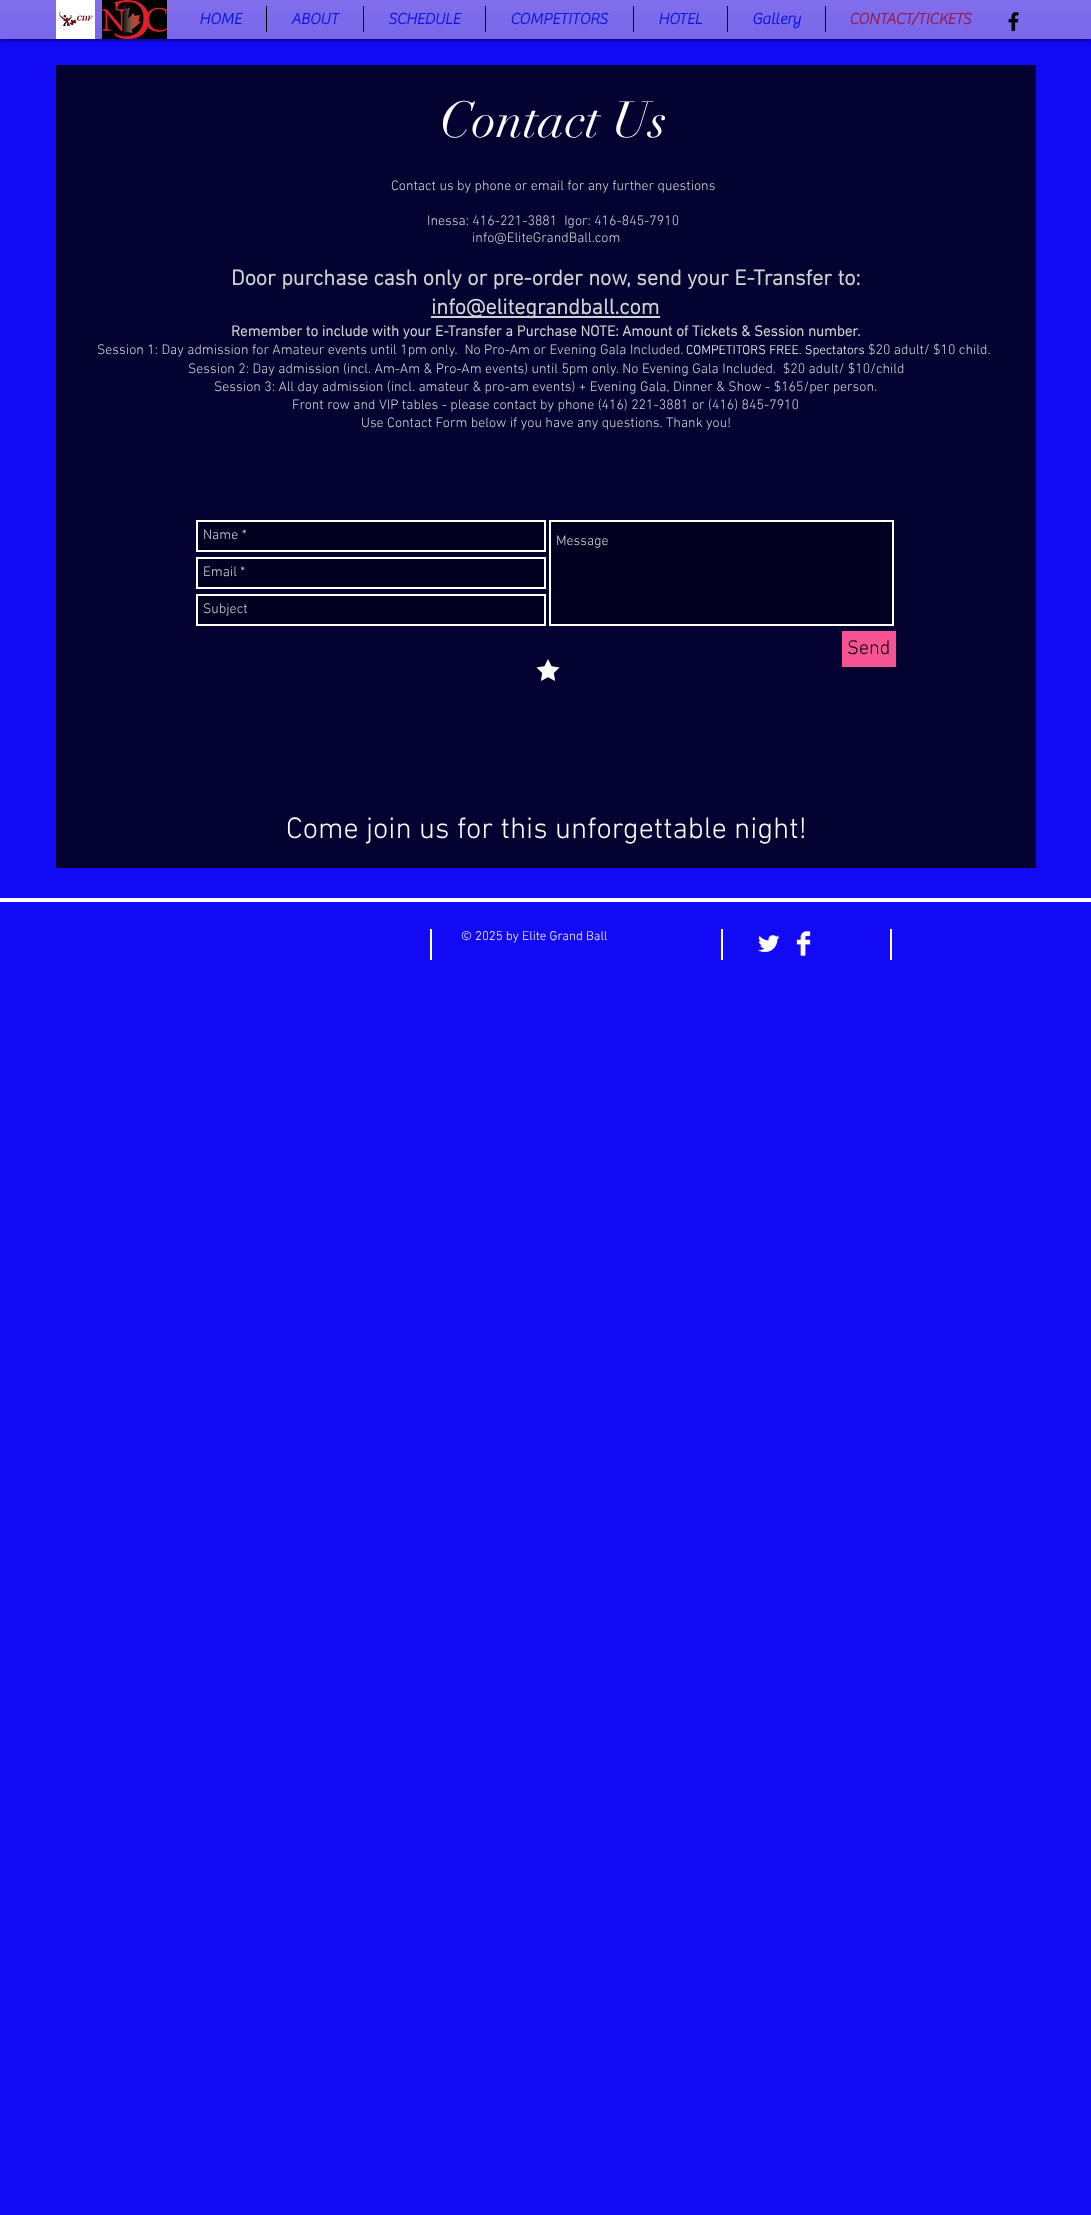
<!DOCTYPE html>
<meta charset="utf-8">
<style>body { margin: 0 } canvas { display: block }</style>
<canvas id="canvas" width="1091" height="2215"></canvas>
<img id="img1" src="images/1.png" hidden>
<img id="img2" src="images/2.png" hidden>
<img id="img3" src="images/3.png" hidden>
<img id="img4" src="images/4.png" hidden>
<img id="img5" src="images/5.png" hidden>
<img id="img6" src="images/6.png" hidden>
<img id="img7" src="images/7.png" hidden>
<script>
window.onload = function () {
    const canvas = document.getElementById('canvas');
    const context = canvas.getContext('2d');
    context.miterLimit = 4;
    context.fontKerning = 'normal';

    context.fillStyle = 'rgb(18, 10, 245)';
    context.fillRect(0, 0, 1091, 2215);
    context.fillStyle = 'rgb(84, 60, 229)';
    context.fillRect(0, 0, 1091, 39);
    context.save();
    context.beginPath();
    context.rect(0, 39, 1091, 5);
    context.clip();
    context.fillStyle = 'rgba(0, 0, 0, 0.6)';
    context.filter = 'blur(2px)';
    context.beginPath();
    context.rect(0, 1, 1091, 39);
    context.fill();
    context.filter = 'none';
    context.restore();
    context.drawImage(document.getElementById('img1'), 0, 0, 1091, 39);
    context.drawImage(document.getElementById('img2'), 56, 0, 39, 39);
    context.fillStyle = 'rgb(0, 0, 0)';
    context.fillRect(102, 0, 65, 39);
    context.drawImage(document.getElementById('img3'), 102, 0, 65, 39);
    context.fillRect(266, 6, 1, 26);
    context.fillRect(363, 6, 1, 26);
    context.fillRect(485, 6, 1, 26);
    context.fillRect(633, 6, 1, 26);
    context.fillRect(727, 6, 1, 26);
    context.fillRect(825, 6, 1, 26);
    context.drawImage(document.getElementById('img4'), 1008, 12, 11, 20);
    context.fillStyle = 'rgb(4, 2, 49)';
    context.fillRect(56, 65, 980, 803);
    context.fillStyle = 'rgb(211, 211, 211)';
    context.fillRect(431, 316, 229, 2);
    context.fillStyle = 'rgb(3, 1, 34)';
    context.beginPath();
    context.rect(197, 521, 348, 30);
    context.fill();
    context.strokeStyle = 'rgb(255, 255, 255)';
    context.lineWidth = 2;
    context.stroke();
    context.beginPath();
    context.rect(550, 521, 343, 104);
    context.fill();
    context.stroke();
    context.beginPath();
    context.rect(197, 558, 348, 30);
    context.fill();
    context.stroke();
    context.beginPath();
    context.rect(197, 595, 348, 30);
    context.fill();
    context.stroke();
    context.fillStyle = 'rgb(245, 83, 148)';
    context.fillRect(842, 631, 54, 36);
    context.drawImage(document.getElementById('img5'), 536, 659, 24, 22);
    context.fillStyle = 'rgb(255, 255, 255)';
    context.fillRect(0, 898, 1091, 4);
    context.fillRect(430, 929, 2, 31);
    context.fillRect(721, 929, 2, 31);
    context.drawImage(document.getElementById('img6'), 758, 935, 22, 18);
    context.drawImage(document.getElementById('img7'), 796, 931, 15, 25);
    context.fillRect(890, 929, 2, 31);
    context.font = 'bold 16px "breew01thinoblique"';
    context.fillStyle = 'rgb(13, 24, 224)';
    context.fillText('HOME', 199, 24);
    context.fillText('ABOUT', 291, 24);
    context.fillText('SCHEDULE', 388, 24);
    context.fillText('COMPETITORS', 510, 24);
    context.fillText('HOTEL', 658, 24);
    context.fillText('Gallery', 752, 24);
    context.fillStyle = 'rgb(150, 25, 81)';
    context.fillText('CONTACT/TICKETS', 849, 24);
    context.font = '50px didot';
    context.fillStyle = 'rgb(255, 255, 255)';
    context.fillText('Contact Us', 440, 137);
    context.font = '300 14px "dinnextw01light"';
    context.fillStyle = 'rgb(211, 211, 211)';
    context.fillText('Contact us by phone or email for any further questions', 391, 190);
    context.fillText('Inessa: 416-221-3881  Igor: 416-845-7910', 427, 225);
    context.fillText('info@EliteGrandBall.com', 472, 242);
    context.font = 'bold 22px "dinnextw01light"';
    context.fillText('Door purchase cash only or pre-order now, send your E-Transfer to:', 231, 285);
    context.fillText('info@elitegrandball.com', 431, 314);
    context.font = 'bold 15px "dinnextw01light"';
    context.fillText('Remember to include with your E-Transfer a Purchase NOTE: Amount of Tickets & Session number.', 231, 336);
    context.font = '300 14px "dinnextw01light"';
    context.fillText('Session 1: Day admission for Amateur events until 1pm only.  No Pro-Am or Evening Gala Included.', 97, 354);
    context.font = '300 13px "dinnextw01light"';
    context.fillStyle = 'rgb(255, 255, 255)';
    context.fillText('COMPETITORS FREE. Spectators', 686, 354);
    context.font = '300 14px "dinnextw01light"';
    context.fillStyle = 'rgb(211, 211, 211)';
    context.fillText('$20 adult/ $10 child.', 868, 354);
    context.fillText('Session 2: Day admission (incl. Am-Am & Pro-Am events) until 5pm only. No Evening Gala Included.  $20 adult/ $10/child', 188, 373);
    context.fillText('Session 3: All day admission (incl. amateur & pro-am events) + Evening Gala, Dinner & Show - $165/per person.', 214, 391);
    context.fillText('Front row and VIP tables - please contact by phone (416) 221-3881 or (416) 845-7910', 292, 409);
    context.fillText('Use Contact Form below if you have any questions. Thank you!', 361, 427);
    context.fillText('Name *', 203, 539);
    context.fillText('Message', 556, 545);
    context.fillText('Email *', 203, 576);
    context.fillText('Subject', 203, 613);
    context.font = '300 20px "dinnextw01light"';
    context.fillStyle = 'rgb(0, 0, 0)';
    context.fillText('Send', 847, 654);
    context.font = '300 30px "dinnextw01light"';
    context.fillStyle = 'rgb(255, 255, 255)';
    context.fillText('Come join us for this unforgettable night!', 286, 838);
    context.font = '300 13px "dinnextw01light"';
    context.fillText('© 2025 by Elite Grand Ball', 461, 940);
};
</script>
